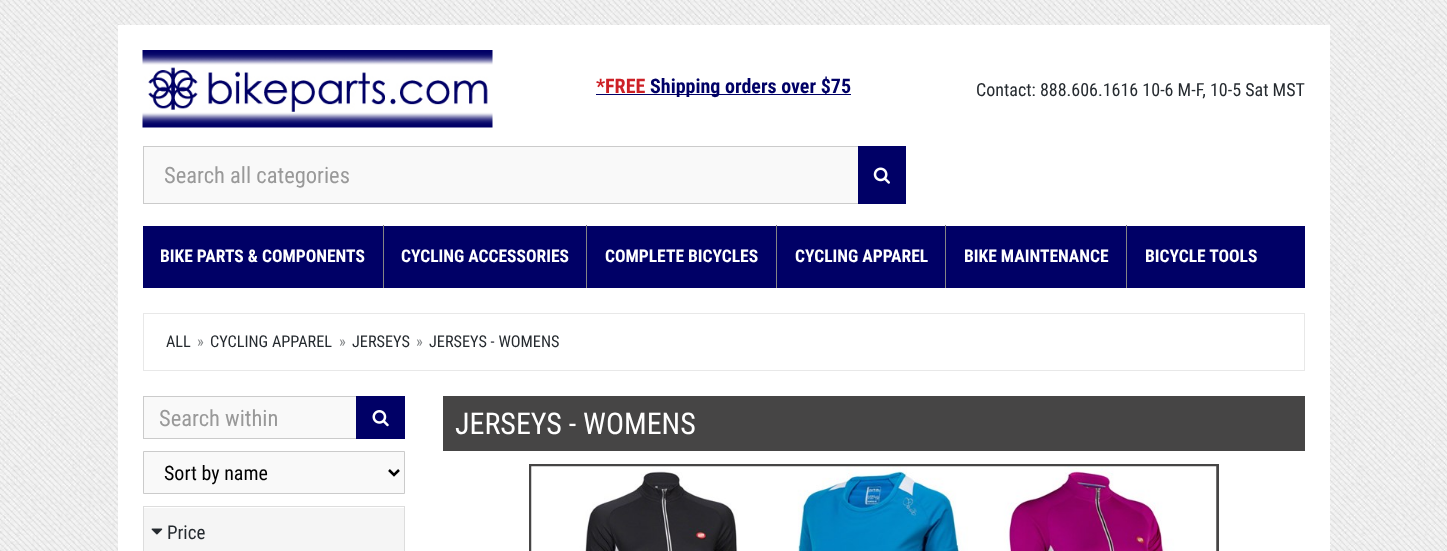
<!DOCTYPE html>
<meta charset="utf-8">
<style>body { margin: 0 } canvas { display: block }</style>
<canvas id="canvas" width="1447" height="551"></canvas>
<img id="img1" src="images/1.png" hidden>
<img id="img2" src="images/2.png" hidden>
<img id="img3" src="images/3.png" hidden>
<img id="img4" src="images/4.png" hidden>
<img id="img5" src="images/5.png" hidden>
<img id="img6" src="images/6.png" hidden>
<img id="img7" src="images/7.png" hidden>
<script>
window.onload = function () {
    const canvas = document.getElementById('canvas');
    const context = canvas.getContext('2d');
    context.miterLimit = 4;
    context.fontKerning = 'normal';

    context.fillStyle = 'rgb(255, 255, 255)';
    context.fillRect(0, 0, 1447, 551);
    context.drawImage(document.getElementById('img1'), 0, 0, 1447, 551);
    context.fillRect(118, 25, 1212, 526);
    context.drawImage(document.getElementById('img2'), 142, 50, 351, 78);
    context.fillStyle = 'rgb(0, 0, 102)';
    context.fillRect(596, 94, 255, 1);
    context.fillStyle = 'rgb(249, 249, 249)';
    context.fillRect(144, 147, 714, 56);
    context.fillStyle = 'rgb(203, 203, 203)';
    context.fillRect(143, 146, 716, 1);
    context.fillRect(143, 203, 716, 1);
    context.fillRect(143, 146, 1, 58);
    context.fillStyle = 'rgb(0, 0, 102)';
    context.fillRect(858, 146, 48, 58);
    context.drawImage(document.getElementById('img3'), 873, 167, 17, 17);
    context.fillRect(143, 226, 1162, 62);
    context.fillStyle = 'rgb(132, 132, 132)';
    context.fillRect(383, 225, 1, 63);
    context.fillRect(586, 225, 1, 63);
    context.fillRect(776, 225, 1, 63);
    context.fillRect(945, 225, 1, 63);
    context.fillRect(1126, 225, 1, 63);
    context.strokeStyle = 'rgb(232, 232, 232)';
    context.strokeRect(143.5, 313.5, 1161, 57);
    context.fillStyle = 'rgb(249, 249, 249)';
    context.fillRect(144, 397, 212, 41);
    context.strokeStyle = 'rgb(203, 203, 203)';
    context.strokeRect(143.5, 396.5, 214, 42);
    context.fillStyle = 'rgb(0, 0, 102)';
    context.fillRect(356, 396, 49, 43);
    context.drawImage(document.getElementById('img4'), 372, 410, 17, 17);
    context.fillStyle = 'rgb(249, 249, 249)';
    context.beginPath();
    context.rect(143.5, 451.5, 261, 42);
    context.fill();
    context.stroke();
    context.beginPath();
    context.moveTo(389, 470);
    context.lineTo(394, 475);
    context.lineTo(399, 470);
    context.strokeStyle = 'rgb(0, 0, 0)';
    context.lineWidth = 2.5;
    context.stroke();
    context.strokeStyle = 'rgb(221, 221, 221)';
    context.lineWidth = 1;
    context.strokeRect(143.5, 506.5, 261, 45);
    context.fillStyle = 'rgb(245, 245, 245)';
    context.fillRect(144, 508, 260, 43);
    context.drawImage(document.getElementById('img5'), 151, 528, 12, 7);
    context.fillStyle = 'rgb(70, 69, 69)';
    context.fillRect(443, 396, 862, 55);
    context.strokeStyle = 'rgb(70, 69, 69)';
    context.lineWidth = 3;
    context.strokeRect(530.5, 465.5, 687, 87);
    context.drawImage(document.getElementById('img6'), 531, 466, 686, 85);
    context.drawImage(document.getElementById('img7'), 1446, 536, 1, 2);
    context.font = 'bold 20px Roboto Condensed';
    context.fillStyle = 'rgb(205, 32, 38)';
    context.fillText('*FREE', 596, 93);
    context.fillStyle = 'rgb(0, 0, 102)';
    context.fillText('Shipping orders over $75', 650, 93);
    context.font = '18px Roboto Condensed';
    context.fillStyle = 'rgb(37, 42, 47)';
    context.fillText('Contact: 888.606.1616 10-6 M-F, 10-5 Sat MST', 976, 96);
    context.font = '22.5px Roboto Condensed';
    context.fillStyle = 'rgb(153, 153, 153)';
    context.fillText('Search all categories', 164, 183);
    context.font = 'bold 17.5px Roboto Condensed';
    context.fillStyle = 'rgb(255, 255, 255)';
    context.fillText('BIKE PARTS & COMPONENTS', 160, 262);
    context.fillText('CYCLING ACCESSORIES', 401, 262);
    context.fillText('COMPLETE BICYCLES', 605, 262);
    context.fillText('CYCLING APPAREL', 795, 262);
    context.fillText('BIKE MAINTENANCE', 964, 262);
    context.fillText('BICYCLE TOOLS', 1145, 262);
    context.font = '16.25px Roboto Condensed';
    context.fillStyle = 'rgb(37, 42, 47)';
    context.fillText('ALL', 166, 347);
    context.fillStyle = 'rgb(135, 138, 140)';
    context.fillText('»', 197, 347);
    context.fillStyle = 'rgb(37, 42, 47)';
    context.fillText('CYCLING APPAREL', 210, 347);
    context.fillStyle = 'rgb(135, 138, 140)';
    context.fillText('»', 339, 347);
    context.fillStyle = 'rgb(37, 42, 47)';
    context.fillText('JERSEYS', 352, 347);
    context.fillStyle = 'rgb(135, 138, 140)';
    context.fillText('»', 416, 347);
    context.fillStyle = 'rgb(37, 42, 47)';
    context.fillText('JERSEYS - WOMENS', 429, 347);
    context.font = '22.5px Roboto Condensed';
    context.fillStyle = 'rgb(153, 153, 153)';
    context.fillText('Search within', 159, 426);
    context.font = '20px Roboto Condensed';
    context.fillStyle = 'rgb(0, 0, 0)';
    context.fillText('Sort by name', 164, 480);
    context.font = '19px Roboto Condensed';
    context.fillStyle = 'rgb(37, 42, 47)';
    context.fillText('Price', 167, 539);
    context.font = '30px Roboto Condensed';
    context.fillStyle = 'rgb(255, 255, 255)';
    context.fillText('JERSEYS - WOMENS', 455, 434);
};
</script>
